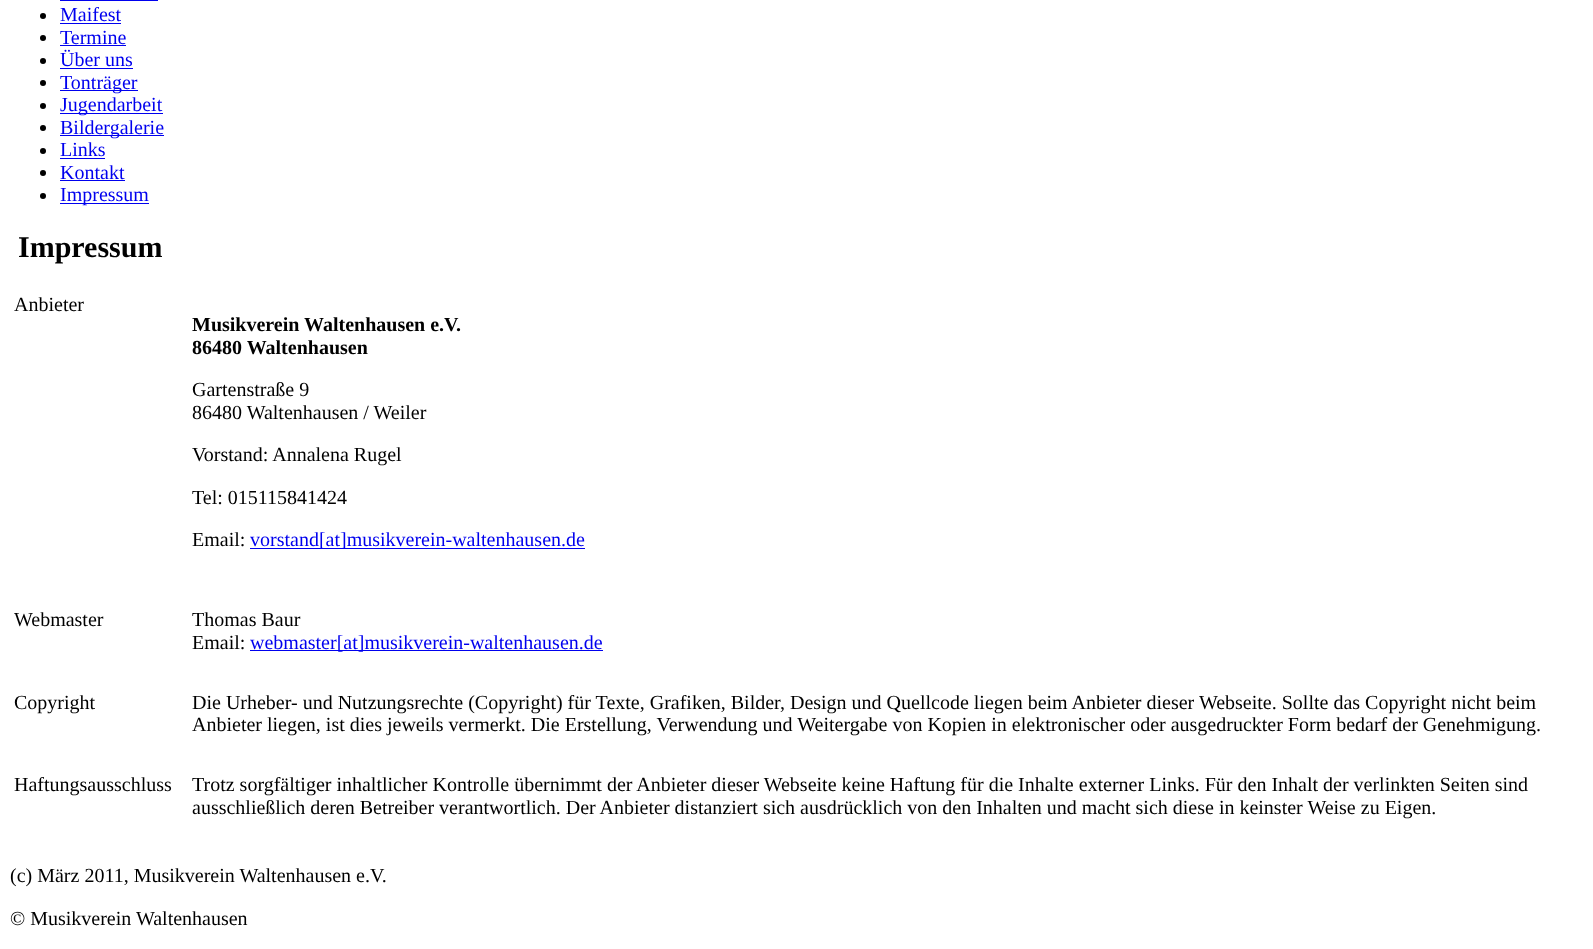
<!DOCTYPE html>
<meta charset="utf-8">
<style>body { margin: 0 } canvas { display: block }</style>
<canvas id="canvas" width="1593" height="949"></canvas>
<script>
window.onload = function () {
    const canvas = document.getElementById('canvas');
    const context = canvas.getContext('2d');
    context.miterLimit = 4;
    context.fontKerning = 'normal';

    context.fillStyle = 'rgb(255, 255, 255)';
    context.fillRect(0, 0, 1593, 949);
    context.fillStyle = 'rgb(0, 0, 238)';
    context.fillRect(60, 0, 98, 1);
    context.fillStyle = 'rgb(0, 0, 0)';
    context.beginPath();
    context.arc(43, 16, 3, 0, 2 * Math.PI);
    context.fill();
    context.fillStyle = 'rgb(0, 0, 238)';
    context.fillRect(60, 23, 61, 1);
    context.fillStyle = 'rgb(0, 0, 0)';
    context.beginPath();
    context.arc(43, 38, 3, 0, 2 * Math.PI);
    context.fill();
    context.fillStyle = 'rgb(0, 0, 238)';
    context.fillRect(60, 45, 66, 1);
    context.fillStyle = 'rgb(0, 0, 0)';
    context.beginPath();
    context.arc(43, 61, 3, 0, 2 * Math.PI);
    context.fill();
    context.fillStyle = 'rgb(0, 0, 238)';
    context.fillRect(60, 68, 73, 1);
    context.fillStyle = 'rgb(0, 0, 0)';
    context.beginPath();
    context.arc(43, 83, 3, 0, 2 * Math.PI);
    context.fill();
    context.fillStyle = 'rgb(0, 0, 238)';
    context.fillRect(60, 90, 78, 1);
    context.fillStyle = 'rgb(0, 0, 0)';
    context.beginPath();
    context.arc(43, 106, 3, 0, 2 * Math.PI);
    context.fill();
    context.fillStyle = 'rgb(0, 0, 238)';
    context.fillRect(60, 113, 103, 1);
    context.fillStyle = 'rgb(0, 0, 0)';
    context.beginPath();
    context.arc(43, 128, 3, 0, 2 * Math.PI);
    context.fill();
    context.fillStyle = 'rgb(0, 0, 238)';
    context.fillRect(60, 135, 104, 1);
    context.fillStyle = 'rgb(0, 0, 0)';
    context.beginPath();
    context.arc(43, 151, 3, 0, 2 * Math.PI);
    context.fill();
    context.fillStyle = 'rgb(0, 0, 238)';
    context.fillRect(60, 158, 45, 1);
    context.fillStyle = 'rgb(0, 0, 0)';
    context.beginPath();
    context.arc(43, 173, 3, 0, 2 * Math.PI);
    context.fill();
    context.fillStyle = 'rgb(0, 0, 238)';
    context.fillRect(60, 180, 65, 1);
    context.fillStyle = 'rgb(0, 0, 0)';
    context.beginPath();
    context.arc(43, 196, 3, 0, 2 * Math.PI);
    context.fill();
    context.fillStyle = 'rgb(0, 0, 238)';
    context.fillRect(60, 203, 89, 1);
    context.fillRect(250, 548, 335, 1);
    context.fillRect(250, 650, 353, 1);
    context.font = '20px Liberation Serif';
    context.fillText('Maifest', 60, 21);
    context.fillText('Termine', 60, 44);
    context.fillText('Über uns', 60, 66);
    context.fillText('Tonträger', 60, 89);
    context.fillText('Jugendarbeit', 60, 111);
    context.fillText('Bildergalerie', 60, 134);
    context.fillText('Links', 60, 156);
    context.fillText('Kontakt', 60, 179);
    context.fillText('Impressum', 60, 201);
    context.font = 'bold 30px Liberation Serif';
    context.fillStyle = 'rgb(0, 0, 0)';
    context.fillText('Impressum', 18, 257);
    context.font = '20px Liberation Serif';
    context.fillText('Anbieter', 14, 311);
    context.font = 'bold 20px Liberation Serif';
    context.fillText('Musikverein Waltenhausen e.V.', 192, 331);
    context.fillText('86480 Waltenhausen', 192, 354);
    context.font = '20px Liberation Serif';
    context.fillText('Gartenstraße 9', 192, 396);
    context.fillText('86480 Waltenhausen / Weiler', 192, 419);
    context.fillText('Vorstand: Annalena Rugel', 192, 461);
    context.fillText('Tel: 015115841424', 192, 504);
    context.fillText('Email:', 192, 546);
    context.fillStyle = 'rgb(0, 0, 238)';
    context.fillText('vorstand[at]musikverein-waltenhausen.de', 250, 546);
    context.fillStyle = 'rgb(0, 0, 0)';
    context.fillText('Webmaster', 14, 626);
    context.fillText('Thomas Baur', 192, 626);
    context.fillText('Email:', 192, 649);
    context.fillStyle = 'rgb(0, 0, 238)';
    context.fillText('webmaster[at]musikverein-waltenhausen.de', 250, 649);
    context.fillStyle = 'rgb(0, 0, 0)';
    context.fillText('Copyright', 14, 709);
    context.fillText('Die Urheber- und Nutzungsrechte (Copyright) für Texte, Grafiken, Bilder, Design und Quellcode liegen beim Anbieter dieser Webseite. Sollte das Copyright nicht beim', 192, 709);
    context.fillText('Anbieter liegen, ist dies jeweils vermerkt. Die Erstellung, Verwendung und Weitergabe von Kopien in elektronischer oder ausgedruckter Form bedarf der Genehmigung.', 192, 731);
    context.fillText('Haftungsausschluss', 14, 791);
    context.fillText('Trotz sorgfältiger inhaltlicher Kontrolle übernimmt der Anbieter dieser Webseite keine Haftung für die Inhalte externer Links. Für den Inhalt der verlinkten Seiten sind', 192, 791);
    context.fillText('ausschließlich deren Betreiber verantwortlich. Der Anbieter distanziert sich ausdrücklich von den Inhalten und macht sich diese in keinster Weise zu Eigen.', 192, 814);
    context.fillText('(c) März 2011, Musikverein Waltenhausen e.V.', 10, 882);
    context.fillText('© Musikverein Waltenhausen', 10, 925);
};
</script>
